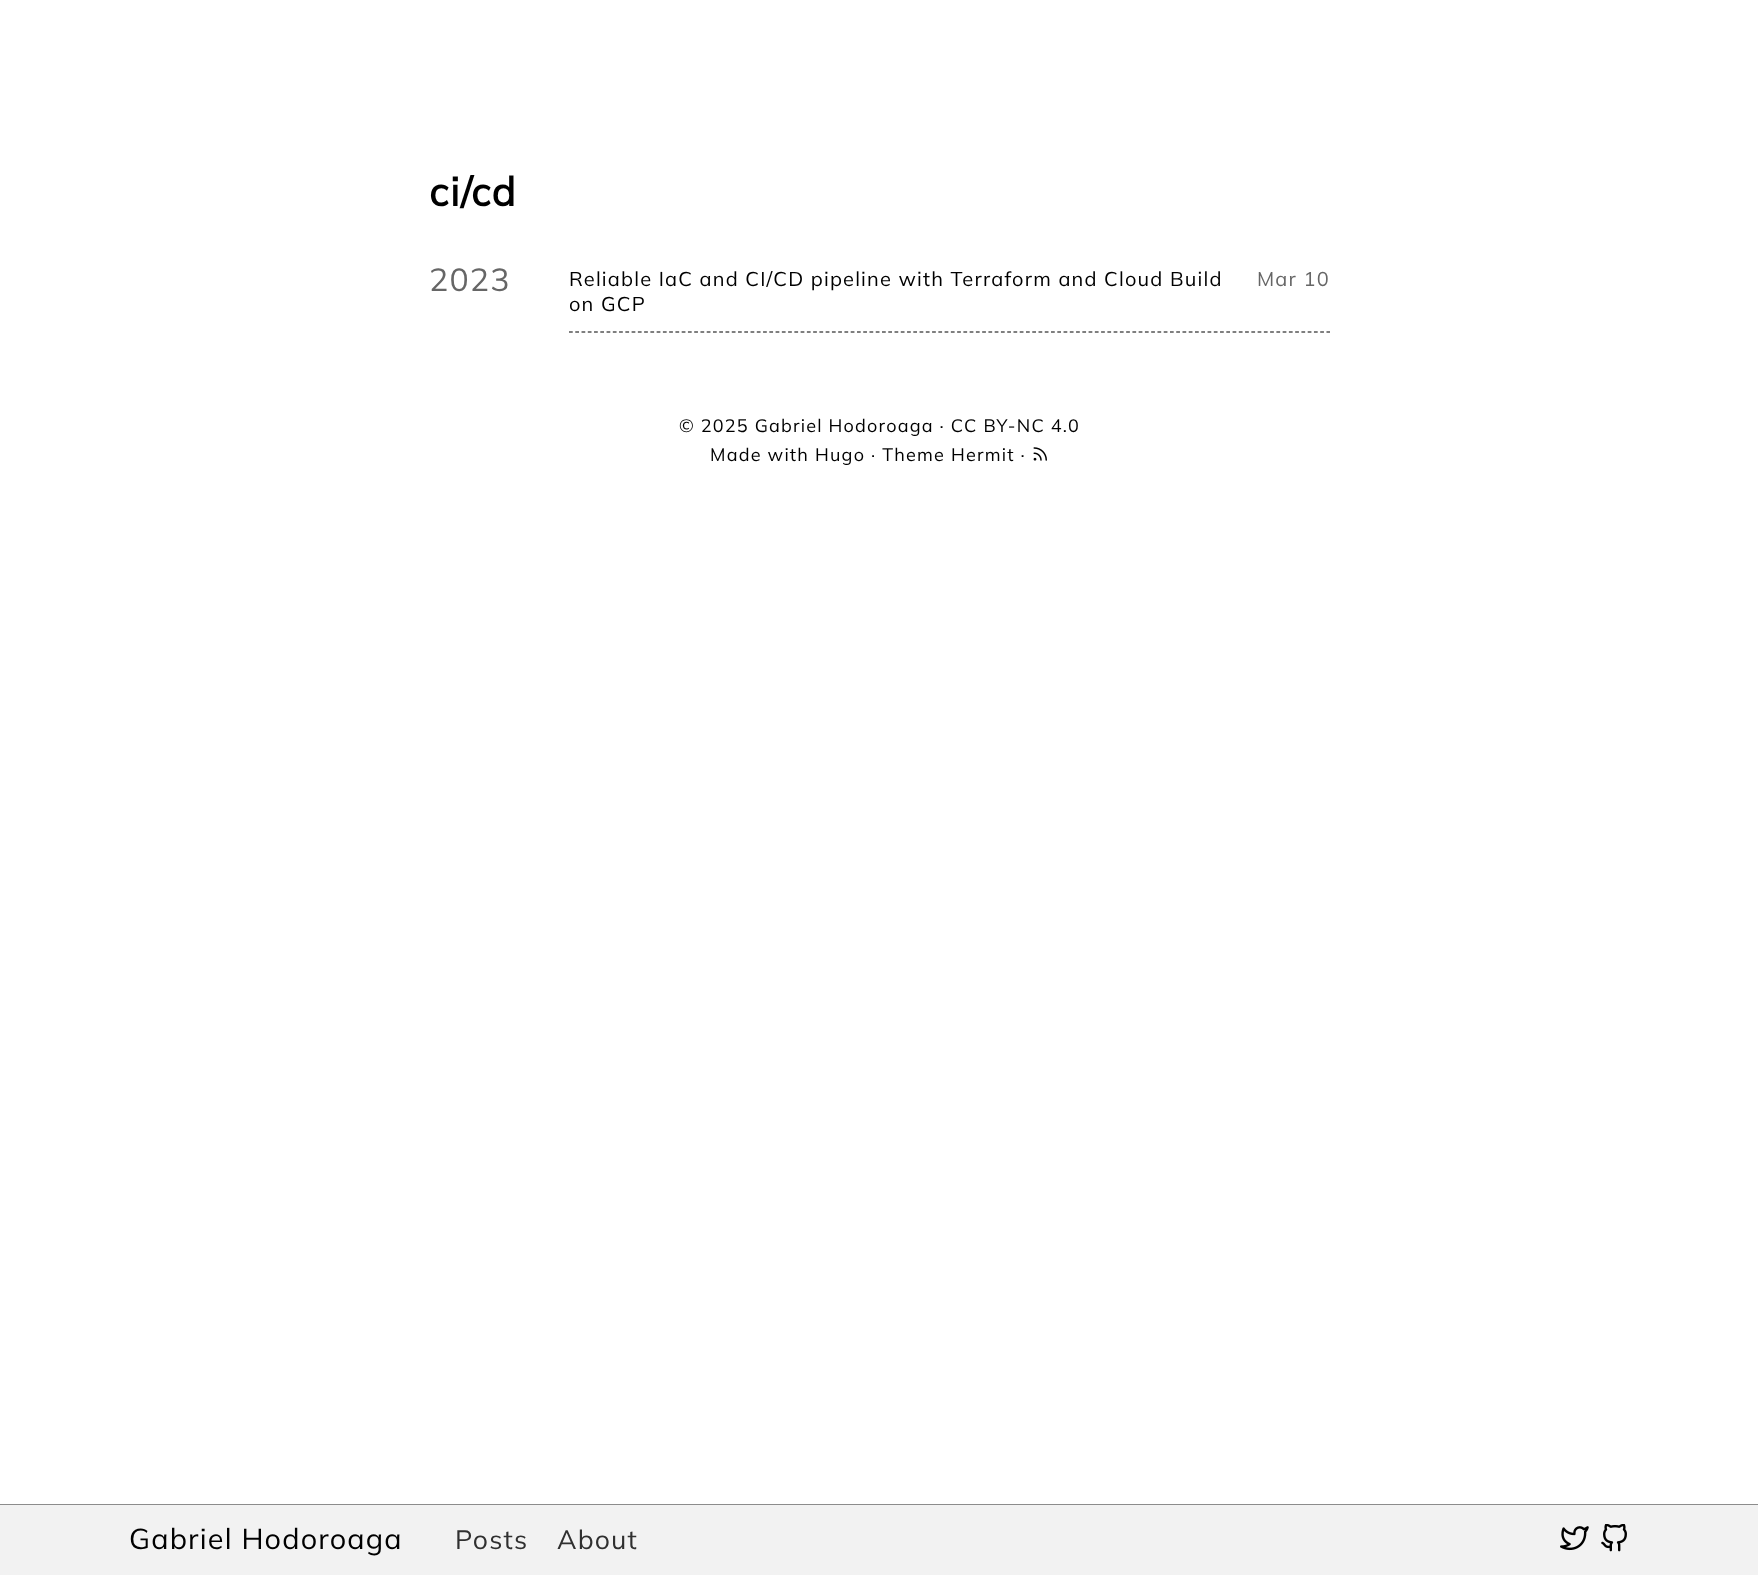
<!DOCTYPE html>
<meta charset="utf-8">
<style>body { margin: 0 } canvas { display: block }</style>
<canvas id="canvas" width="1758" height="1575"></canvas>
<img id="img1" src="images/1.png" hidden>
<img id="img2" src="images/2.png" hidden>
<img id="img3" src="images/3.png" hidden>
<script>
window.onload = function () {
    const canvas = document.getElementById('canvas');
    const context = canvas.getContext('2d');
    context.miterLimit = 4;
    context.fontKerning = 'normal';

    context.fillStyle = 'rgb(255, 255, 255)';
    context.fillRect(0, 0, 1758, 1575);
    context.beginPath();
    context.moveTo(569, 332);
    context.lineTo(1330, 332);
    context.strokeStyle = 'rgb(0, 0, 0)';
    context.lineWidth = 1.2;
    context.setLineDash([3.75, 2.51]);
    context.stroke();
    context.drawImage(document.getElementById('img1'), 1033, 447, 14, 14);
    context.fillStyle = 'rgb(140, 140, 140)';
    context.beginPath();
    context.moveTo(-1, 1504);
    context.lineTo(-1, 1574);
    context.lineTo(0, 1574);
    context.lineTo(0, 1505);
    context.lineTo(1758, 1505);
    context.lineTo(1758, 1504);
    context.closePath();
    context.fill();
    context.fillStyle = 'rgb(242, 242, 242)';
    context.fillRect(0, 1505, 1758, 70);
    context.drawImage(document.getElementById('img2'), 1560, 1526, 29, 25);
    context.drawImage(document.getElementById('img3'), 1601, 1524, 26, 28);
    context.letterSpacing = '1.2px';
    context.font = 'bold 40px Mulish';
    context.fillStyle = 'rgb(0, 0, 0)';
    context.fillText('ci/cd', 429, 206);
    context.font = '32px Mulish';
    context.fillStyle = 'rgb(102, 102, 102)';
    context.fillText('2023', 429, 291);
    context.font = '20px Mulish';
    context.fillStyle = 'rgb(0, 0, 0)';
    context.fillText('Reliable IaC and CI/CD pipeline with Terraform and Cloud Build', 569, 286);
    context.fillText('on GCP', 569, 311);
    context.fillStyle = 'rgb(102, 102, 102)';
    context.fillText('Mar 10', 1257, 286);
    context.font = '18px Mulish';
    context.fillStyle = 'rgb(0, 0, 0)';
    context.fillText('© 2025 Gabriel Hodoroaga · CC BY-NC 4.0', 679, 432);
    context.fillText('Made with Hugo · Theme Hermit ·', 710, 461);
    context.font = '28.75px Mulish';
    context.fillText('Gabriel Hodoroaga', 129, 1549);
    context.font = '26.5px Mulish';
    context.fillStyle = 'rgb(48, 48, 48)';
    context.fillText('Posts', 455, 1549);
    context.fillText('About', 557, 1549);
};
</script>
